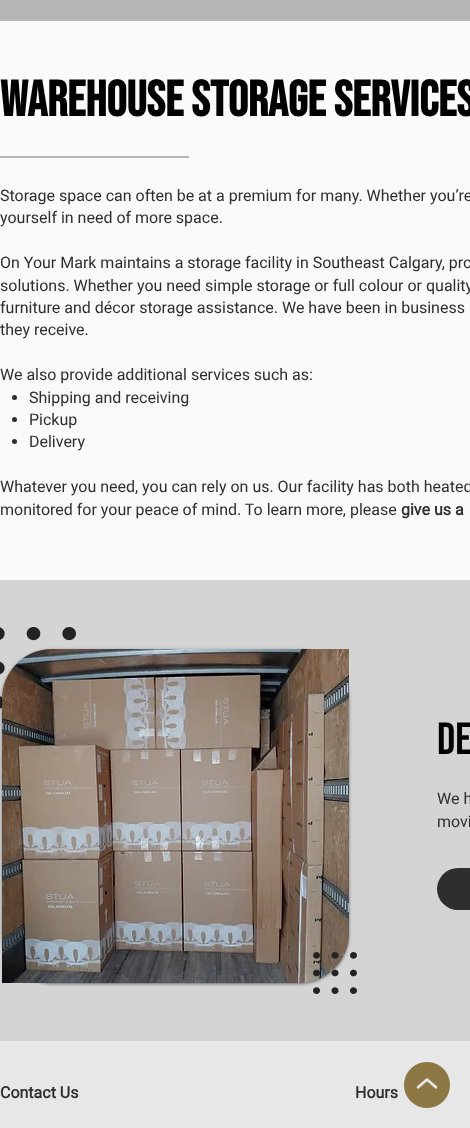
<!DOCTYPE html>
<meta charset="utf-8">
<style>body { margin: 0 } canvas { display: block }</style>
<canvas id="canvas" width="470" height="1128"></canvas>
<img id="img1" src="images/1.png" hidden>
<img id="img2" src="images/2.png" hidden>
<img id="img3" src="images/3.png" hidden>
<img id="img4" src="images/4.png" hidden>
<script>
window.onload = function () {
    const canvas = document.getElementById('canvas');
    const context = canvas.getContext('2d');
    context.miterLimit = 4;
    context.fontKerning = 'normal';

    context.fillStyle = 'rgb(182, 182, 182)';
    context.fillRect(0, 0, 470, 1128);
    context.fillStyle = 'rgb(250, 250, 250)';
    context.fillRect(0, 21, 470, 559);
    context.fillStyle = 'rgb(182, 182, 182)';
    context.fillRect(0, 156, 189, 2);
    context.fillStyle = 'rgb(47, 46, 46)';
    context.beginPath();
    context.arc(14.5, 397.5, 2.5, 0, 2 * Math.PI);
    context.fill();
    context.beginPath();
    context.arc(14.5, 419.5, 2.5, 0, 2 * Math.PI);
    context.fill();
    context.beginPath();
    context.arc(14.5, 441.5, 2.5, 0, 2 * Math.PI);
    context.fill();
    context.fillStyle = 'rgb(213, 212, 212)';
    context.fillRect(0, 580, 470, 461);
    context.drawImage(document.getElementById('img1'), 0, 627, 76, 82);
    context.fillStyle = 'rgba(0, 0, 0, 0.5)';
    context.filter = 'blur(1.5px)';
    context.beginPath();
    context.roundRect(2, 650, 347, 334, 50);
    context.fill();
    context.filter = 'none';
    context.drawImage(document.getElementById('img2'), 2, 649, 347, 334);
    context.fillStyle = 'rgb(47, 46, 46)';
    context.beginPath();
    context.roundRect(437, 868, 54, 42, 21);
    context.fill();
    context.drawImage(document.getElementById('img3'), 313, 952, 44, 42);
    context.fillStyle = 'rgb(231, 231, 231)';
    context.fillRect(0, 1041, 470, 87);
    context.drawImage(document.getElementById('img4'), 404, 1062, 46, 46);
    context.font = 'bold 50px Bebas Neue';
    context.fillStyle = 'rgb(0, 0, 0)';
    context.fillText('Warehouse Storage Services', 0, 116);
    context.font = '16px Roboto';
    context.fillStyle = 'rgb(47, 46, 46)';
    context.fillText('Storage space can often be at a premium for many. Whether you’re', 0, 201);
    context.fillText('yourself in need of more space.', 0, 223);
    context.fillText('On Your Mark maintains a storage facility in Southeast Calgary, pro', 0, 268);
    context.fillText('solutions. Whether you need simple storage or full colour or quality', 0, 291);
    context.fillText('furniture and décor storage assistance. We have been in business', 0, 313);
    context.fillText('they receive.', 0, 335);
    context.fillText('We also provide additional services such as:', 0, 380);
    context.fillText('Shipping and receiving', 29, 403);
    context.fillText('Pickup', 29, 425);
    context.fillText('Delivery', 29, 447);
    context.fillText('Whatever you need, you can rely on us. Our facility has both heated', 0, 492);
    context.fillText('monitored for your peace of mind. To learn more, please', 0, 515);
    context.font = 'bold 16px Roboto';
    context.fillText('give us a', 401, 515);
    context.font = '45px Bebas Neue';
    context.fillStyle = 'rgb(0, 0, 0)';
    context.fillText('De', 437, 754);
    context.font = '16px Roboto';
    context.fillStyle = 'rgb(47, 46, 46)';
    context.fillText('We h', 437, 804);
    context.fillText('movi', 437, 827);
    context.font = 'bold 16px Roboto';
    context.fillText('Contact Us', 0, 1098);
    context.fillText('Hours', 355, 1098);
};
</script>
